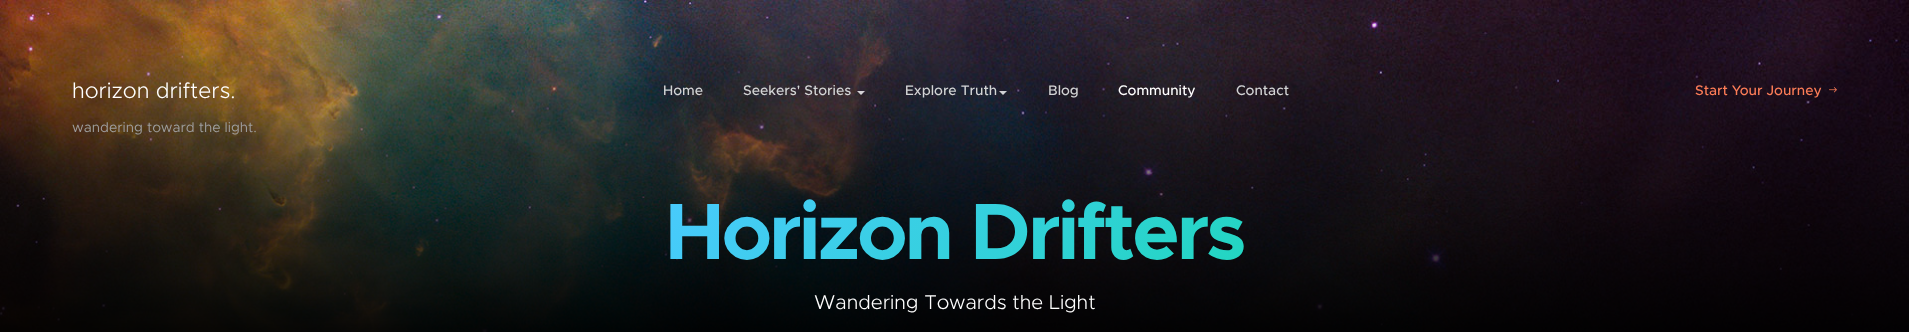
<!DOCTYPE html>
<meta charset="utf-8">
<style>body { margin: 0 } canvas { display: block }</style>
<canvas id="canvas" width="1909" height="332"></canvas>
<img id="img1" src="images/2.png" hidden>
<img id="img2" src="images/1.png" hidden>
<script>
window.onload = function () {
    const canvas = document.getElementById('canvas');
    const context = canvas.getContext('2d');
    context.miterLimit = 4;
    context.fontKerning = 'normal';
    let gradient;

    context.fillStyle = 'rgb(255, 255, 255)';
    context.fillRect(0, 0, 1909, 332);
    context.drawImage(document.getElementById('img1'), 0, 0, 1909, 332);
    context.fillStyle = 'rgba(255, 255, 255, 0.8)';
    context.beginPath();
    context.moveTo(857, 91);
    context.lineTo(865, 91);
    context.lineTo(861, 95);
    context.closePath();
    context.fill();
    context.beginPath();
    context.moveTo(999, 91);
    context.lineTo(1007, 91);
    context.lineTo(1003, 95);
    context.closePath();
    context.fill();
    context.drawImage(document.getElementById('img2'), 1829, 87, 8, 6);
    context.font = '300 22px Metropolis';
    context.fillStyle = 'rgb(255, 255, 255)';
    context.fillText('horizon drifters.', 72, 98);
    context.font = '14px Metropolis';
    context.fillStyle = 'rgb(158, 158, 158)';
    context.fillText('wandering toward the light.', 72, 132);
    context.font = '500 14px Metropolis';
    context.fillStyle = 'rgb(211, 212, 213)';
    context.fillText('Home', 663, 95);
    context.fillText('Seekers\' Stories', 743, 95);
    context.fillText('Explore Truth', 905, 95);
    context.fillText('Blog', 1048, 95);
    context.fillStyle = 'rgb(255, 255, 255)';
    context.fillText('Community', 1118, 95);
    context.fillStyle = 'rgb(211, 212, 213)';
    context.fillText('Contact', 1236, 95);
    context.fillStyle = 'rgb(253, 125, 87)';
    context.fillText('Start Your Journey', 1695, 95);
    context.letterSpacing = '-3px';
    context.font = 'bold 80px Metropolis';
    gradient = context.createLinearGradient(783, 62, 1126, 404);
    gradient.addColorStop(0, 'rgb(74, 202, 255)');
    gradient.addColorStop(1, 'rgb(33, 214, 191)');
    context.fillStyle = gradient;
    context.fillText('Horizon Drifters', 665, 259);
    context.letterSpacing = '0px';
    context.font = '300 20px Metropolis';
    context.fillStyle = 'rgb(255, 255, 255)';
    context.fillText('Wandering Towards the Light', 814, 309);
};
</script>
